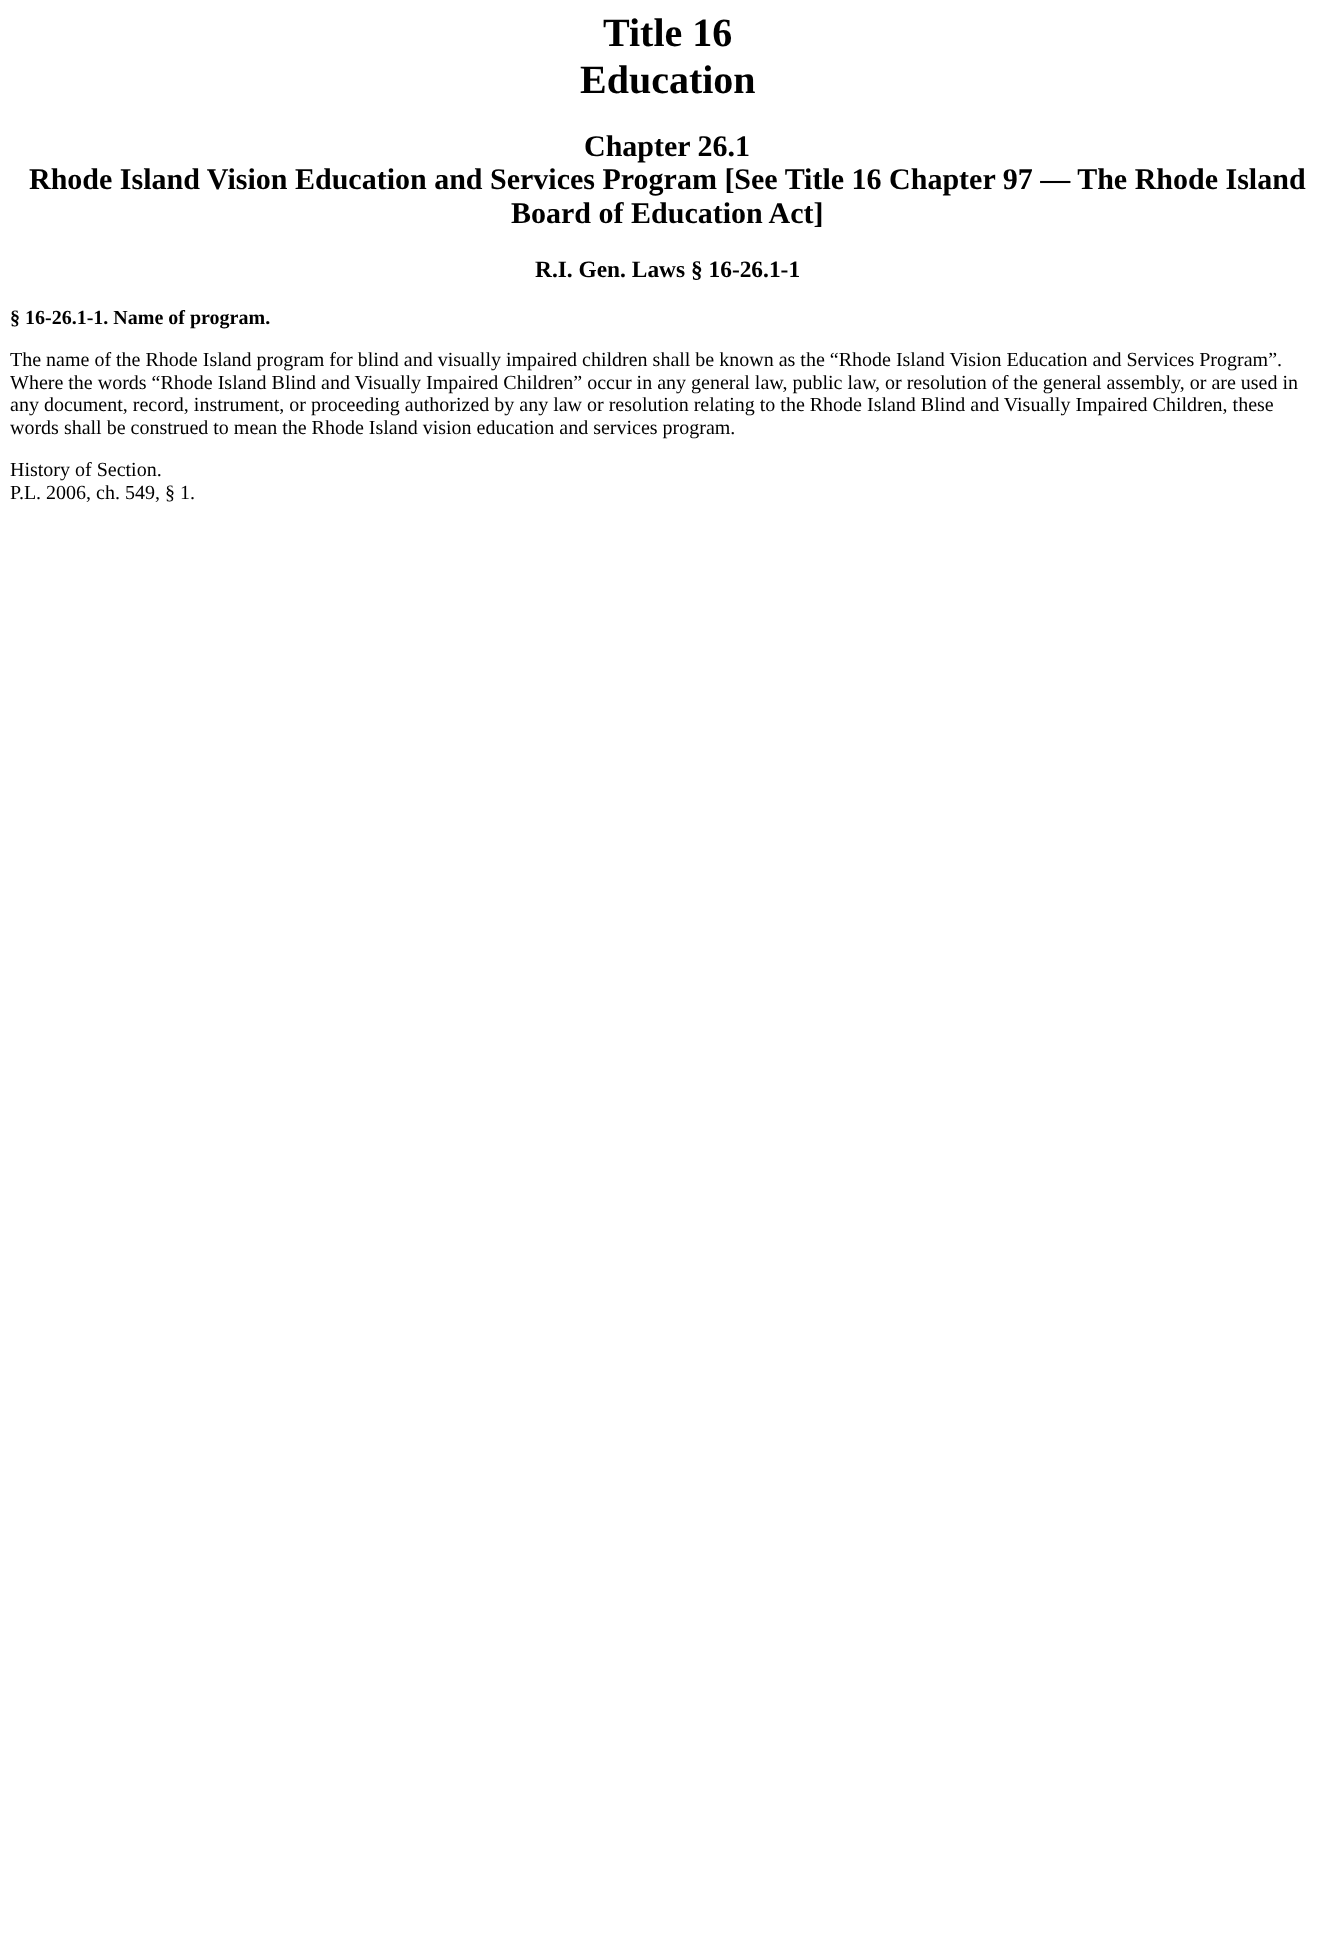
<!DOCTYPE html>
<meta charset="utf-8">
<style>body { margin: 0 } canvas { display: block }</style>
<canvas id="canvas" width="1335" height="1953"></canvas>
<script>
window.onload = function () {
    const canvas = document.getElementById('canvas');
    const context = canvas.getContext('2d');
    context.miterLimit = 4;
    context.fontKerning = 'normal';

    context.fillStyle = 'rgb(255, 255, 255)';
    context.fillRect(0, 0, 1335, 1953);
    context.font = 'bold 40px Liberation Serif';
    context.fillStyle = 'rgb(0, 0, 0)';
    context.fillText('Title 16', 603, 46);
    context.fillText('Education', 580, 93);
    context.font = 'bold 30px Liberation Serif';
    context.fillText('Chapter 26.1', 584, 156);
    context.fillText('Rhode Island Vision Education and Services Program [See Title 16 Chapter 97 — The Rhode Island', 29, 189);
    context.fillText('Board of Education Act]', 511, 223);
    context.font = 'bold 23.4px Liberation Serif';
    context.fillText('R.I. Gen. Laws § 16-26.1-1', 535, 277);
    context.font = 'bold 20px Liberation Serif';
    context.fillText('§ 16-26.1-1. Name of program.', 10, 324);
    context.font = '20px Liberation Serif';
    context.fillText('The name of the Rhode Island program for blind and visually impaired children shall be known as the “Rhode Island Vision Education and Services Program”.', 10, 366);
    context.fillText('Where the words “Rhode Island Blind and Visually Impaired Children” occur in any general law, public law, or resolution of the general assembly, or are used in', 10, 389);
    context.fillText('any document, record, instrument, or proceeding authorized by any law or resolution relating to the Rhode Island Blind and Visually Impaired Children, these', 10, 411);
    context.fillText('words shall be construed to mean the Rhode Island vision education and services program.', 10, 434);
    context.fillText('History of Section.', 10, 476);
    context.fillText('P.L. 2006, ch. 549, § 1.', 10, 499);
};
</script>
